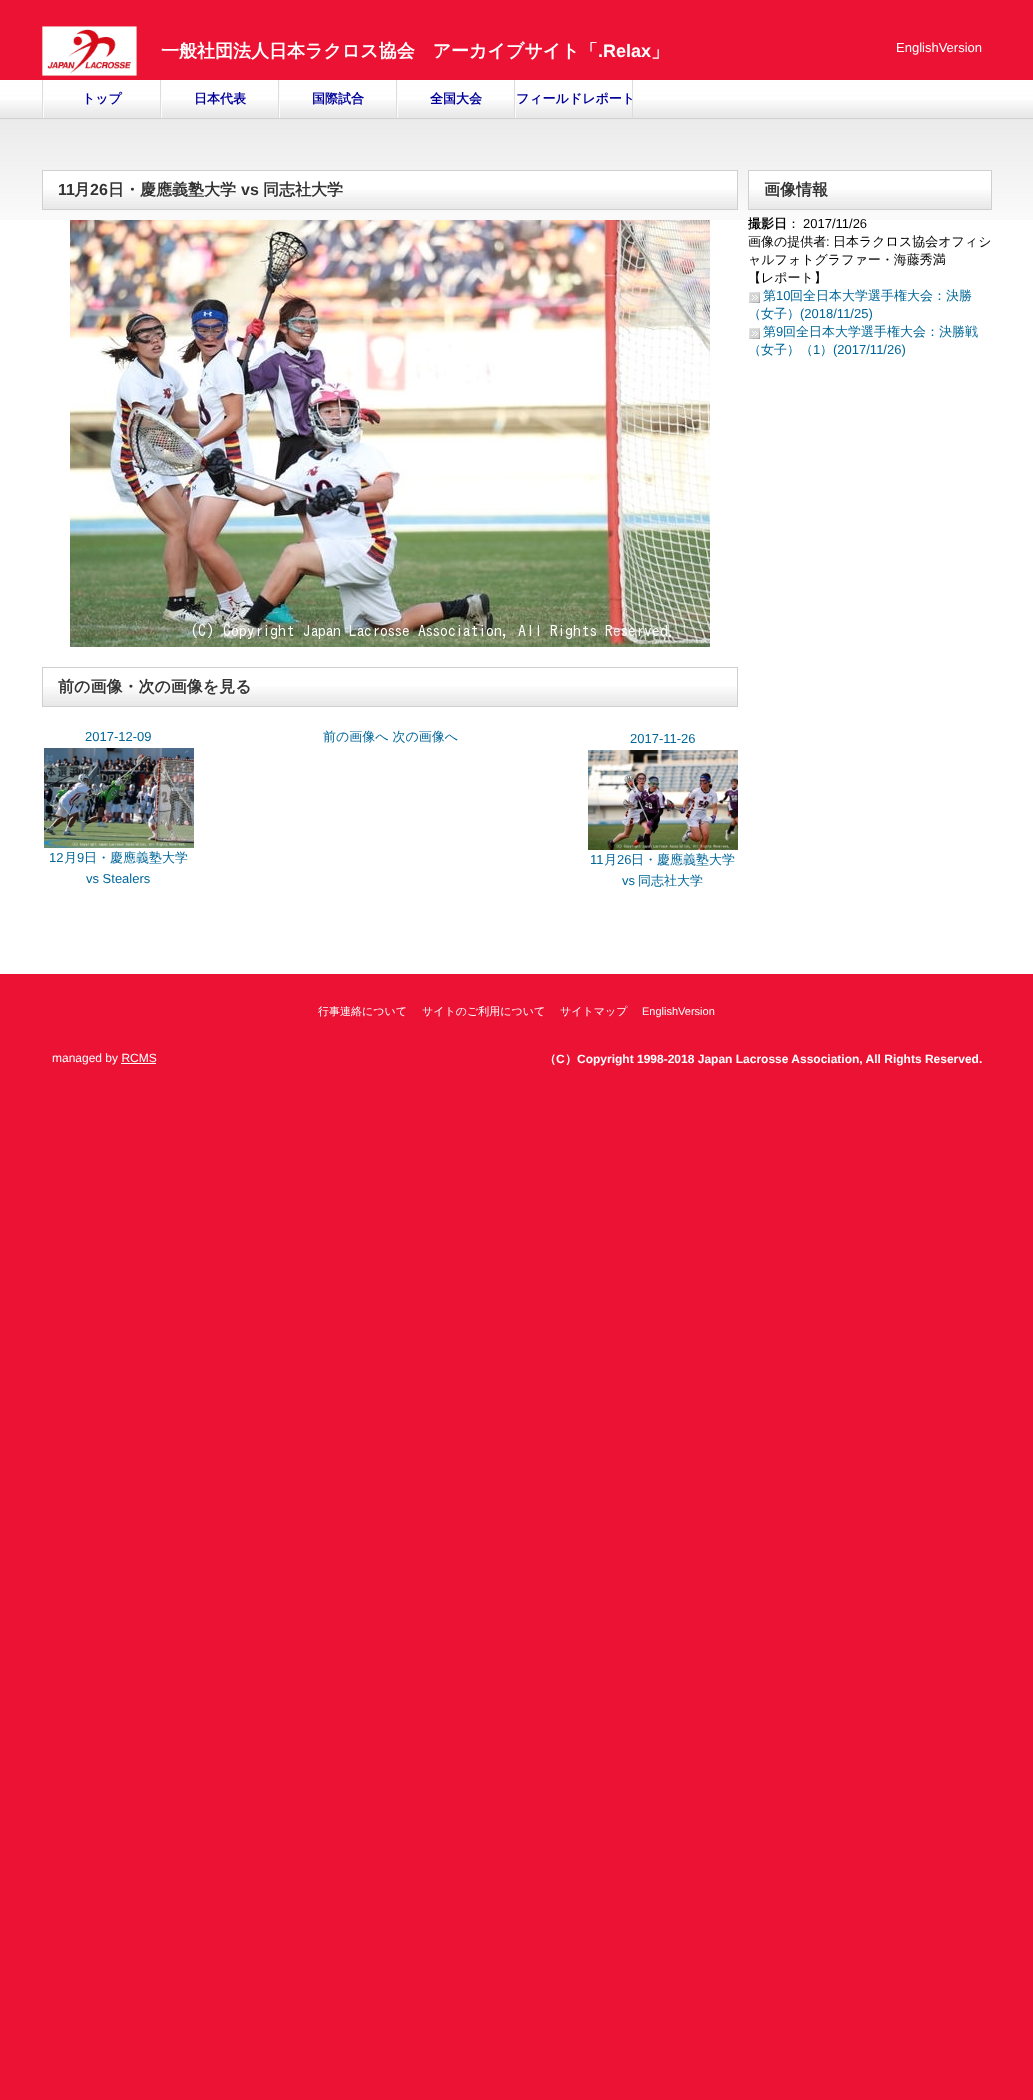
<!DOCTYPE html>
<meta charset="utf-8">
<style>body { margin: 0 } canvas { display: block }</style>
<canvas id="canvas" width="1033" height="2100"></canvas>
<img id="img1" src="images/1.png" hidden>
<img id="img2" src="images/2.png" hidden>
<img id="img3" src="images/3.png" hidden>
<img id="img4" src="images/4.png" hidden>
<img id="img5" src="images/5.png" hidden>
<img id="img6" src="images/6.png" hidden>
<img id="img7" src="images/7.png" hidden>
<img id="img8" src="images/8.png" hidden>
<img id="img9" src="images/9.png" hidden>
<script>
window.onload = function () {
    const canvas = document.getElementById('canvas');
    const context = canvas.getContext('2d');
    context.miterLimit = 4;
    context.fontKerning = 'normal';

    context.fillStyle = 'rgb(236, 18, 52)';
    context.fillRect(0, 0, 1033, 2100);
    context.fillStyle = 'rgb(255, 255, 255)';
    context.fillRect(0, 220, 1033, 754);
    context.drawImage(document.getElementById('img1'), 0, 81, 1033, 139);
    context.drawImage(document.getElementById('img2'), 42, 26, 95, 50);
    context.fillRect(0, 80, 1033, 1);
    context.fillStyle = 'rgb(221, 221, 221)';
    context.fillRect(42, 80, 1, 38);
    context.fillRect(160, 80, 1, 38);
    context.fillStyle = 'rgb(252, 252, 252)';
    context.fillRect(43, 80, 1, 38);
    context.fillStyle = 'rgb(221, 221, 221)';
    context.fillRect(278, 80, 1, 38);
    context.fillStyle = 'rgb(252, 252, 252)';
    context.fillRect(161, 80, 1, 38);
    context.fillStyle = 'rgb(221, 221, 221)';
    context.fillRect(396, 80, 1, 38);
    context.fillStyle = 'rgb(252, 252, 252)';
    context.fillRect(279, 80, 1, 38);
    context.fillStyle = 'rgb(221, 221, 221)';
    context.fillRect(514, 80, 1, 38);
    context.fillStyle = 'rgb(252, 252, 252)';
    context.fillRect(397, 80, 1, 38);
    context.fillStyle = 'rgb(221, 221, 221)';
    context.fillRect(632, 80, 1, 38);
    context.fillStyle = 'rgb(252, 252, 252)';
    context.fillRect(515, 80, 1, 38);
    context.drawImage(document.getElementById('img3'), 43, 171, 694, 38);
    context.strokeStyle = 'rgb(208, 208, 208)';
    context.strokeRect(42.5, 170.5, 695, 39);
    context.drawImage(document.getElementById('img4'), 70, 220, 640, 427);
    context.drawImage(document.getElementById('img5'), 43, 687, 694, 19);
    context.strokeRect(42.5, 667.5, 695, 39);
    context.drawImage(document.getElementById('img6'), 44, 748, 150, 100);
    context.drawImage(document.getElementById('img7'), 588, 750, 150, 100);
    context.drawImage(document.getElementById('img8'), 749, 171, 242, 38);
    context.strokeRect(748.5, 170.5, 243, 39);
    context.drawImage(document.getElementById('img9'), 749, 292, 11, 11);
    context.drawImage(document.getElementById('img9'), 749, 328, 11, 11);
    context.fillStyle = 'rgb(255, 255, 255)';
    context.fillRect(121, 1063, 35, 1);
    context.font = 'bold 18px WenQuanYi Zen Hei';
    context.fillText('一般社団法人日本ラクロス協会　アーカイブサイト「', 161, 57);
    context.font = 'bold 18px Liberation Sans';
    context.fillText('.Relax', 598, 57);
    context.font = 'bold 18px WenQuanYi Zen Hei';
    context.fillText('」', 651, 57);
    context.font = '13px Liberation Sans';
    context.fillText('EnglishVersion', 896, 52);
    context.font = 'bold 13px WenQuanYi Zen Hei';
    context.fillStyle = 'rgb(0, 0, 153)';
    context.fillText('トップ', 82, 103);
    context.fillText('日本代表', 194, 103);
    context.fillText('国際試合', 312, 103);
    context.fillText('全国大会', 430, 103);
    context.fillText('フィールドレポート', 516, 103);
    context.font = 'bold 16px Liberation Sans';
    context.fillStyle = 'rgb(51, 51, 51)';
    context.fillText('11', 58, 195);
    context.font = 'bold 16px WenQuanYi Zen Hei';
    context.fillText('月', 74, 195);
    context.font = 'bold 16px Liberation Sans';
    context.fillText('26', 90, 195);
    context.font = 'bold 16px WenQuanYi Zen Hei';
    context.fillText('日・慶應義塾大学', 108, 195);
    context.font = 'bold 16px Liberation Sans';
    context.fillText('vs', 241, 195);
    context.font = 'bold 16px WenQuanYi Zen Hei';
    context.fillText('同志社大学', 263, 195);
    context.fillText('前の画像・次の画像を見る', 58, 692);
    context.font = '13px Liberation Sans';
    context.fillStyle = 'rgb(0, 102, 153)';
    context.fillText('2017-12-09', 85, 741);
    context.fillText('12', 49, 862);
    context.font = '500 13px WenQuanYi Zen Hei';
    context.fillText('月', 64, 862);
    context.font = '13px Liberation Sans';
    context.fillText('9', 77, 862);
    context.font = '500 13px WenQuanYi Zen Hei';
    context.fillText('日・慶應義塾大学', 84, 862);
    context.font = '13px Liberation Sans';
    context.fillText('vs Stealers', 86, 883);
    context.font = '500 13px WenQuanYi Zen Hei';
    context.fillText('前の画像へ 次の画像へ', 323, 741);
    context.font = '13px Liberation Sans';
    context.fillText('2017-11-26', 630, 743);
    context.fillText('11', 590, 864);
    context.font = '500 13px WenQuanYi Zen Hei';
    context.fillText('月', 604, 864);
    context.font = '13px Liberation Sans';
    context.fillText('26', 617, 864);
    context.font = '500 13px WenQuanYi Zen Hei';
    context.fillText('日・慶應義塾大学', 631, 864);
    context.font = '13px Liberation Sans';
    context.fillText('vs', 622, 885);
    context.font = '500 13px WenQuanYi Zen Hei';
    context.fillText('同志社大学', 638, 885);
    context.font = 'bold 16px WenQuanYi Zen Hei';
    context.fillStyle = 'rgb(51, 51, 51)';
    context.fillText('画像情報', 764, 195);
    context.font = 'bold 13px WenQuanYi Zen Hei';
    context.fillStyle = 'rgb(0, 0, 0)';
    context.fillText('撮影日', 748, 228);
    context.font = '500 13px WenQuanYi Zen Hei';
    context.fillText('：', 787, 228);
    context.font = '13px Liberation Sans';
    context.fillText('2017/11/26', 803, 228);
    context.font = '500 13px WenQuanYi Zen Hei';
    context.fillText('画像の提供者', 748, 246);
    context.font = '13px Liberation Sans';
    context.fillText(':', 826, 246);
    context.font = '500 13px WenQuanYi Zen Hei';
    context.fillText('日本ラクロス協会オフィシ', 833, 246);
    context.fillText('ャルフォトグラファー・海藤秀満', 748, 264);
    context.fillText('【レポート】', 748, 282);
    context.fillStyle = 'rgb(0, 102, 153)';
    context.fillText('第', 763, 300);
    context.font = '13px Liberation Sans';
    context.fillText('10', 776, 300);
    context.font = '500 13px WenQuanYi Zen Hei';
    context.fillText('回全日本大学選手権大会：決勝', 790, 300);
    context.fillText('（女子）', 748, 318);
    context.font = '13px Liberation Sans';
    context.fillText('(2018/11/25)', 800, 318);
    context.font = '500 13px WenQuanYi Zen Hei';
    context.fillText('第', 763, 336);
    context.font = '13px Liberation Sans';
    context.fillText('9', 776, 336);
    context.font = '500 13px WenQuanYi Zen Hei';
    context.fillText('回全日本大学選手権大会：決勝戦', 783, 336);
    context.fillText('（女子）（', 748, 354);
    context.font = '13px Liberation Sans';
    context.fillText('1', 813, 354);
    context.font = '500 13px WenQuanYi Zen Hei';
    context.fillText('）', 820, 354);
    context.font = '13px Liberation Sans';
    context.fillText('(2017/11/26)', 833, 354);
    context.font = '500 11px WenQuanYi Zen Hei';
    context.fillStyle = 'rgb(255, 255, 255)';
    context.fillText('行事連絡について', 318, 1015);
    context.fillText('サイトのご利用について', 422, 1015);
    context.fillText('サイトマップ', 560, 1015);
    context.font = '11px Liberation Sans';
    context.fillText('EnglishVersion', 642, 1015);
    context.font = '12px Liberation Sans';
    context.fillText('managed by RCMS', 52, 1062);
    context.font = 'bold 12px WenQuanYi Zen Hei';
    context.fillText('（', 544, 1063);
    context.font = 'bold 12px Liberation Sans';
    context.fillText('C', 556, 1063);
    context.font = 'bold 12px WenQuanYi Zen Hei';
    context.fillText('）', 565, 1063);
    context.font = 'bold 12px Liberation Sans';
    context.fillText('Copyright 1998-2018 Japan Lacrosse Association, All Rights Reserved.', 577, 1063);
};
</script>
